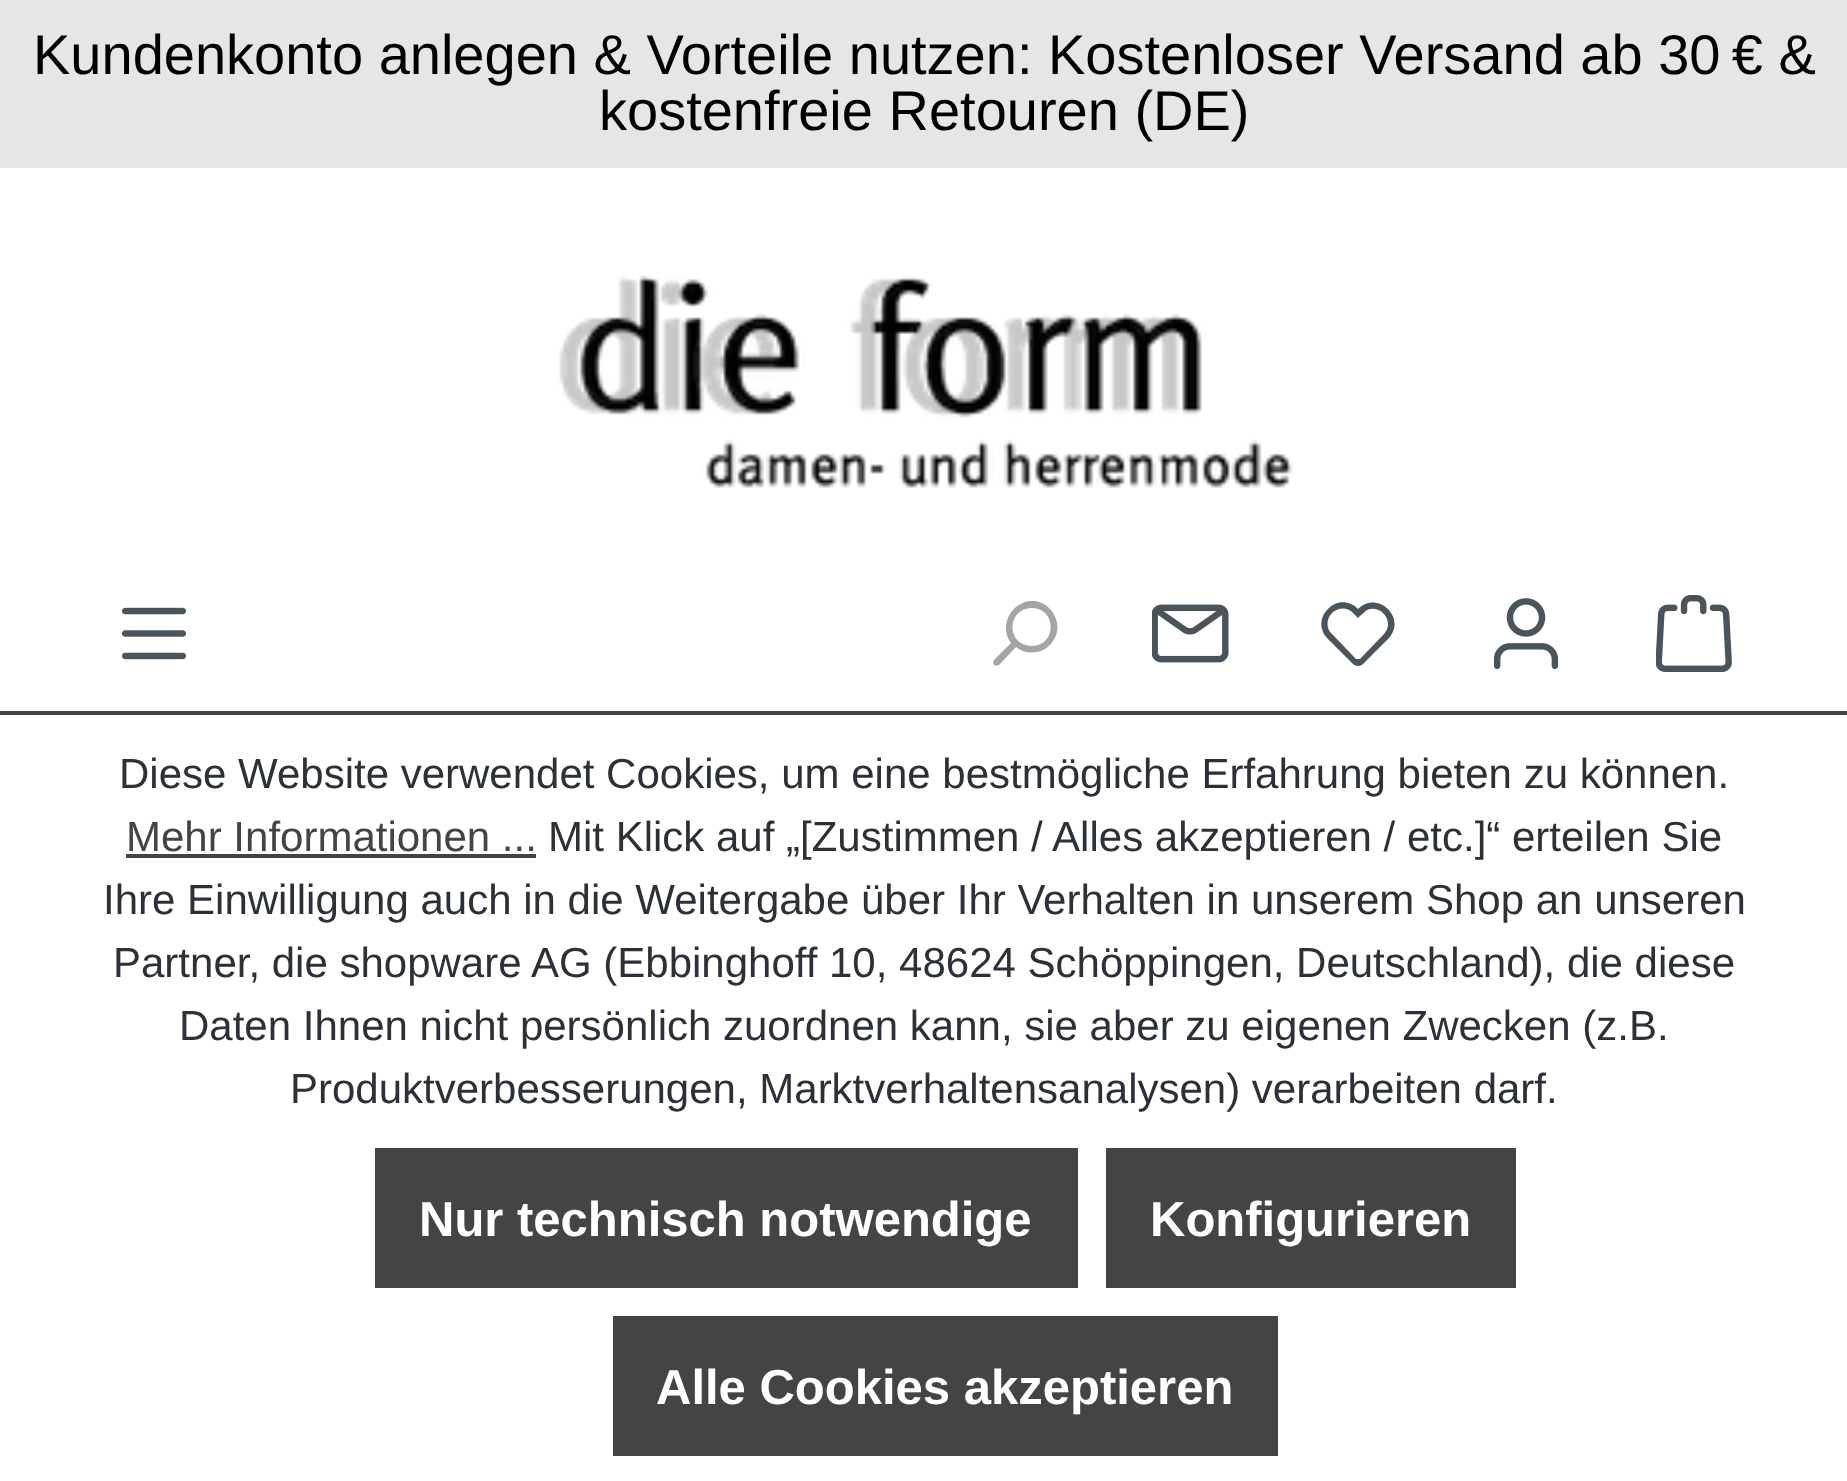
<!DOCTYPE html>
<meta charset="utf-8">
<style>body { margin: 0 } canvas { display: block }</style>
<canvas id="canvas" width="1847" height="1481"></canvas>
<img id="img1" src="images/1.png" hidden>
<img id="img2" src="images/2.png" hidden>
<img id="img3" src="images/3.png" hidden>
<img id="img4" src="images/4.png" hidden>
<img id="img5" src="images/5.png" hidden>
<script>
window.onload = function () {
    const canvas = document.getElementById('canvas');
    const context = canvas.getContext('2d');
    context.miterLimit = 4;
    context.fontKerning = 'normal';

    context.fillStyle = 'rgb(255, 255, 255)';
    context.fillRect(0, 0, 1847, 1481);
    context.fillStyle = 'rgb(230, 230, 230)';
    context.fillRect(0, 0, 1847, 168);
    context.drawImage(document.getElementById('img1'), 559, 275, 734, 213);
    context.drawImage(document.getElementById('img2'), 121, 607, 66, 53);
    context.fillStyle = 'rgb(165, 165, 165)';
    context.beginPath();
    context.moveTo(1016, 647);
    context.lineTo(999, 665);
    context.bezierCurveTo(997, 666, 995, 666, 994, 665);
    context.bezierCurveTo(993, 663, 993, 661, 994, 660);
    context.lineTo(1011, 643);
    context.bezierCurveTo(996, 623, 1017, 593, 1042, 603);
    context.bezierCurveTo(1048, 606, 1053, 611, 1055, 617);
    context.bezierCurveTo(1059, 625, 1058, 634, 1053, 641);
    context.bezierCurveTo(1045, 654, 1027, 656, 1016, 647);
    context.closePath();
    context.moveTo(1032, 646);
    context.bezierCurveTo(1057, 646, 1057, 608, 1032, 608);
    context.bezierCurveTo(1006, 608, 1006, 646, 1032, 646);
    context.closePath();
    context.fill('evenodd');
    context.drawImage(document.getElementById('img3'), 1152, 604, 77, 59);
    context.fillStyle = 'rgb(74, 84, 91)';
    context.beginPath();
    context.moveTo(1384, 634);
    context.bezierCurveTo(1395, 623, 1382, 604, 1367, 610);
    context.bezierCurveTo(1364, 612, 1361, 615, 1358, 618);
    context.lineTo(1353, 613);
    context.bezierCurveTo(1348, 607, 1338, 607, 1332, 613);
    context.bezierCurveTo(1326, 619, 1326, 629, 1332, 634);
    context.lineTo(1356, 659);
    context.bezierCurveTo(1357, 659, 1359, 659, 1360, 659);
    context.closePath();
    context.moveTo(1388, 639);
    context.lineTo(1364, 663);
    context.bezierCurveTo(1361, 667, 1355, 667, 1352, 663);
    context.lineTo(1328, 639);
    context.bezierCurveTo(1319, 631, 1319, 617, 1328, 609);
    context.bezierCurveTo(1336, 600, 1350, 600, 1358, 609);
    context.bezierCurveTo(1378, 589, 1408, 619, 1388, 639);
    context.closePath();
    context.fill('evenodd');
    context.drawImage(document.getElementById('img4'), 1493, 598, 66, 72);
    context.drawImage(document.getElementById('img5'), 1656, 595, 76, 77);
    context.fillStyle = 'rgb(68, 68, 68)';
    context.fillRect(0, 711, 1847, 4);
    context.fillRect(126, 854, 410, 4);
    context.fillRect(375, 1148, 703, 140);
    context.fillRect(1106, 1148, 410, 140);
    context.fillRect(613, 1316, 665, 140);
    context.font = '56px Liberation Sans';
    context.fillStyle = 'rgb(0, 0, 0)';
    context.fillText('Kundenkonto anlegen & Vorteile nutzen: Kostenloser Versand ab 30 € &', 33, 74);
    context.fillText('kostenfreie Retouren (DE)', 599, 130);
    context.font = '42px Liberation Sans';
    context.fillStyle = 'rgb(43, 49, 54)';
    context.fillText('Diese Website verwendet Cookies, um eine bestmögliche Erfahrung bieten zu können.', 119, 788);
    context.fillStyle = 'rgb(68, 68, 68)';
    context.fillText('Mehr Informationen ...', 126, 851);
    context.fillStyle = 'rgb(43, 49, 54)';
    context.fillText('Mit Klick auf „[Zustimmen / Alles akzeptieren / etc.]“ erteilen Sie', 548, 851);
    context.fillText('Ihre Einwilligung auch in die Weitergabe über Ihr Verhalten in unserem Shop an unseren', 103, 914);
    context.fillText('Partner, die shopware AG (Ebbinghoff 10, 48624 Schöppingen, Deutschland), die diese', 113, 977);
    context.fillText('Daten Ihnen nicht persönlich zuordnen kann, sie aber zu eigenen Zwecken (z.B.', 179, 1040);
    context.fillText('Produktverbesserungen, Marktverhaltensanalysen) verarbeiten darf.', 290, 1103);
    context.font = 'bold 49px Liberation Sans';
    context.fillStyle = 'rgb(255, 255, 255)';
    context.fillText('Nur technisch notwendige', 419, 1236);
    context.fillText('Konfigurieren', 1150, 1236);
    context.fillText('Alle Cookies akzeptieren', 656, 1404);
};
</script>
